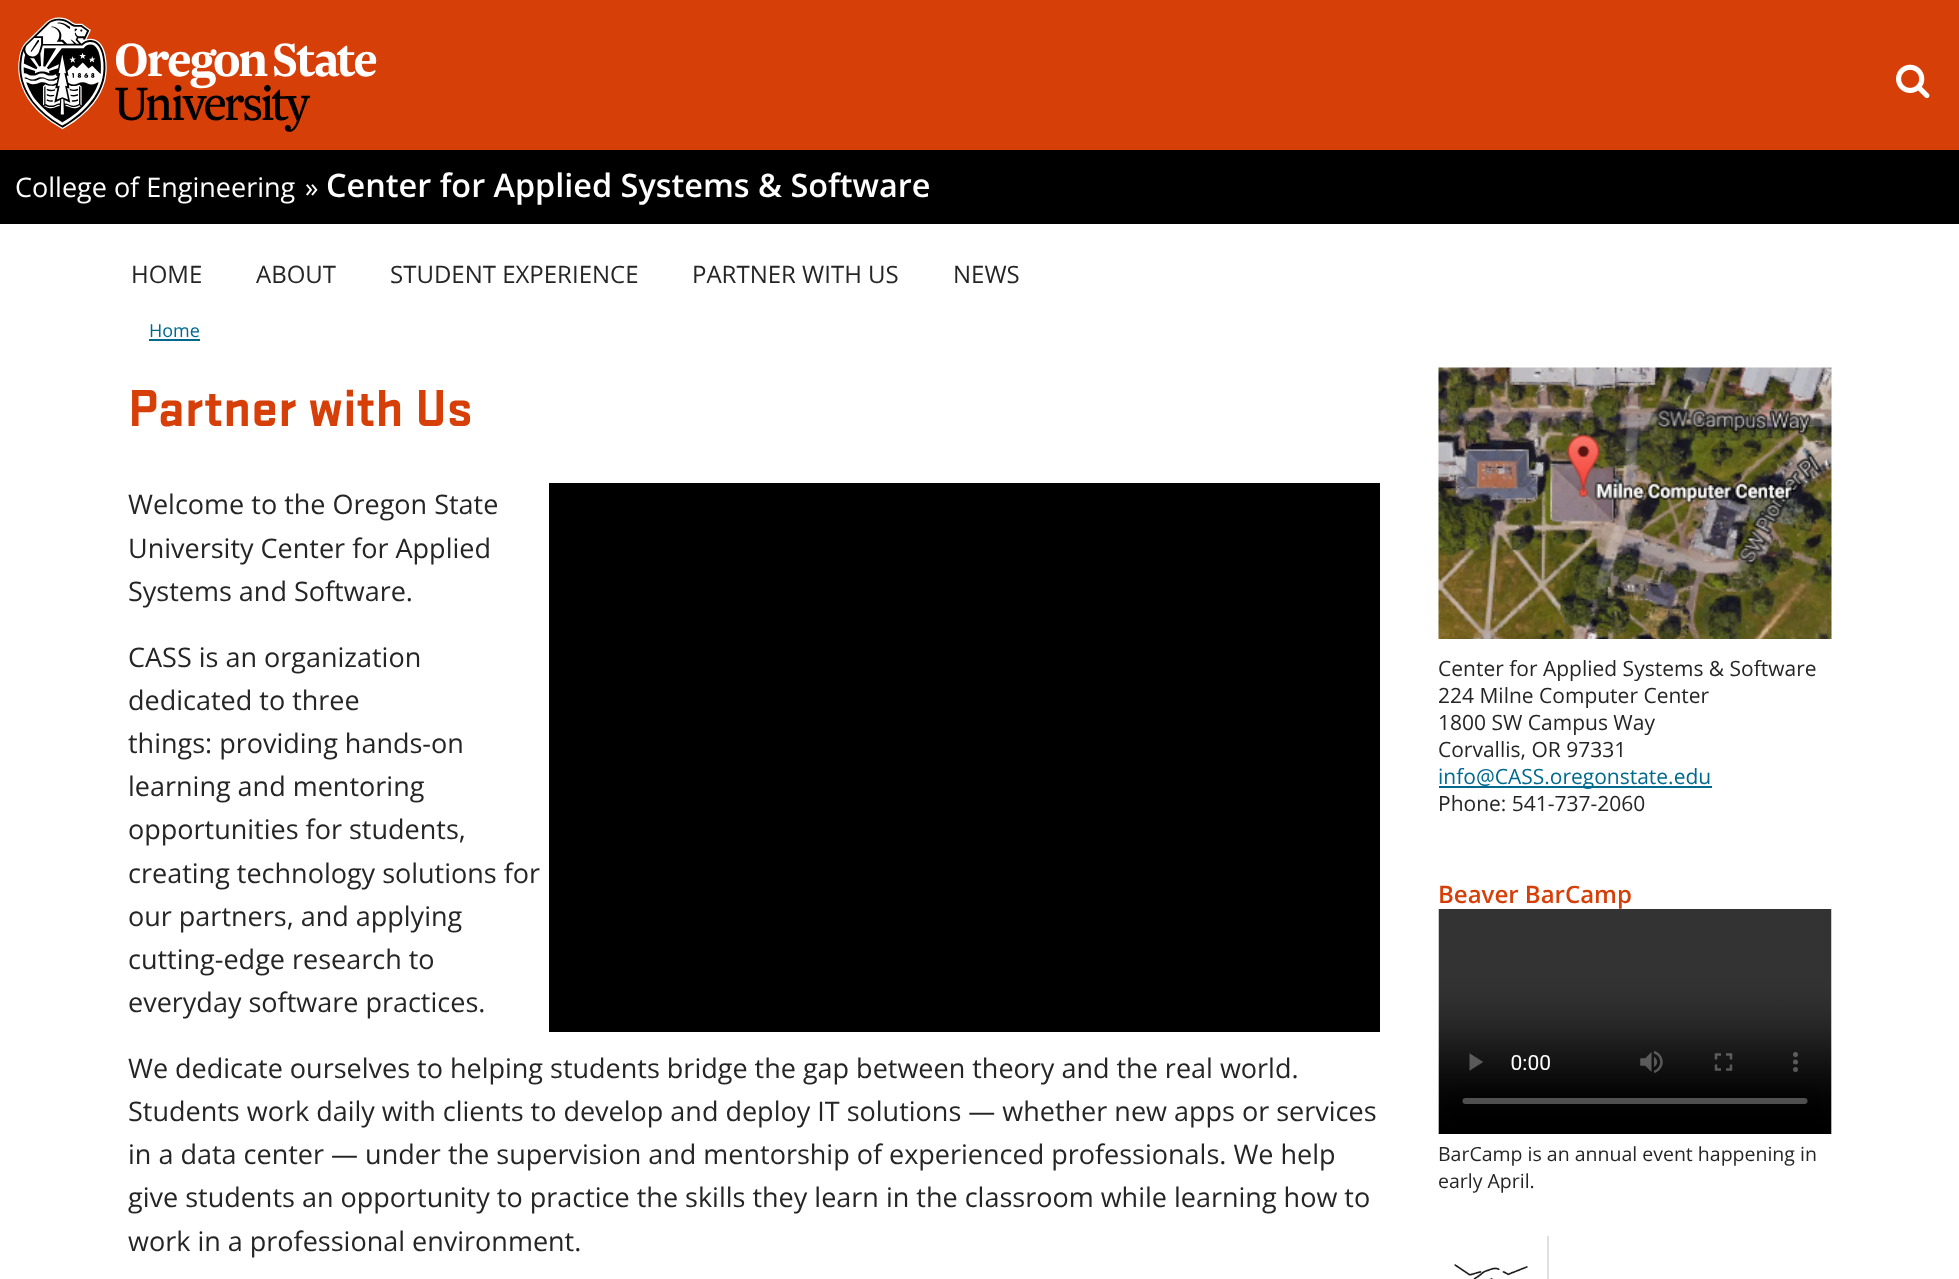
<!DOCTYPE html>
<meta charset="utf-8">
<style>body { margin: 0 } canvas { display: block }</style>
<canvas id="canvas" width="1959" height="1279"></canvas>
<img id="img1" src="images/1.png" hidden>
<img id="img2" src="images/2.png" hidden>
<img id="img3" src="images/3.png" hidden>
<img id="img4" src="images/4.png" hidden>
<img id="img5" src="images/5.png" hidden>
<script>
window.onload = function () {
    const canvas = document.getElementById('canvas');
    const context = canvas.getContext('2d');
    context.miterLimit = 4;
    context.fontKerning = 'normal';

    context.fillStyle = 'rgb(255, 255, 255)';
    context.fillRect(0, 0, 1959, 1279);
    context.fillStyle = 'rgb(215, 63, 9)';
    context.fillRect(0, 0, 1959, 150);
    context.drawImage(document.getElementById('img1'), 18, 17, 359, 115);
    context.drawImage(document.getElementById('img2'), 1896, 64, 34, 35);
    context.fillStyle = 'rgb(0, 0, 0)';
    context.fillRect(0, 150, 1959, 74);
    context.fillStyle = 'rgb(0, 106, 142)';
    context.fillRect(149, 339, 51, 2);
    context.fillStyle = 'rgb(0, 0, 0)';
    context.fillRect(549, 483, 831, 549);
    context.drawImage(document.getElementById('img3'), 1438, 367, 394, 272);
    context.fillStyle = 'rgb(0, 106, 142)';
    context.fillRect(1439, 786, 273, 2);
    context.drawImage(document.getElementById('img4'), 1438, 909, 394, 225);
    context.fillStyle = 'rgb(224, 224, 224)';
    context.fillRect(1547, 1236, 2, 43);
    context.drawImage(document.getElementById('img5'), 1454, 1264, 74, 15);
    context.font = '27px Open Sans';
    context.fillStyle = 'rgb(255, 255, 255)';
    context.fillText('College of Engineering', 15, 197);
    context.fillText('»', 305, 197);
    context.font = '600 32.4px Open Sans';
    context.fillText('Center for Applied Systems & Software', 326, 197);
    context.font = '24px Open Sans';
    context.fillStyle = 'rgb(37, 37, 37)';
    context.fillText('HOME', 131, 283);
    context.fillText('ABOUT', 256, 283);
    context.fillText('STUDENT EXPERIENCE', 390, 283);
    context.fillText('PARTNER WITH US', 692, 283);
    context.fillText('NEWS', 953, 283);
    context.font = '18px Open Sans';
    context.fillStyle = 'rgb(0, 106, 142)';
    context.fillText('Home', 149, 337);
    context.font = 'bold 54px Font';
    context.fillStyle = 'rgb(215, 63, 9)';
    context.fillText('Partner with Us', 128, 426);
    context.font = '27px Open Sans';
    context.fillStyle = 'rgb(37, 37, 37)';
    context.fillText('Welcome to the Oregon State', 128, 514);
    context.fillText('University Center for Applied', 128, 558);
    context.fillText('Systems and Software.', 128, 601);
    context.fillText('CASS is an organization', 128, 667);
    context.fillText('dedicated to three', 128, 710);
    context.fillText('things: providing hands-on', 128, 753);
    context.fillText('learning and mentoring', 128, 796);
    context.fillText('opportunities for students,', 128, 839);
    context.fillText('creating technology solutions for', 128, 883);
    context.fillText('our partners, and applying', 128, 926);
    context.fillText('cutting-edge research to', 128, 969);
    context.fillText('everyday software practices.', 128, 1012);
    context.fillText('We dedicate ourselves to helping students bridge the gap between theory and the real world.', 128, 1078);
    context.fillText('Students work daily with clients to develop and deploy IT solutions — whether new apps or services', 128, 1121);
    context.fillText('in a data center — under the supervision and mentorship of experienced professionals. We help', 128, 1164);
    context.fillText('give students an opportunity to practice the skills they learn in the classroom while learning how to', 128, 1207);
    context.fillText('work in a professional environment.', 128, 1251);
    context.font = '21px Open Sans';
    context.fillText('Center for Applied Systems & Software', 1438, 676);
    context.fillText('224 Milne Computer Center', 1438, 703);
    context.fillText('1800 SW Campus Way', 1438, 730);
    context.fillText('Corvallis, OR 97331', 1438, 757);
    context.fillStyle = 'rgb(0, 106, 142)';
    context.fillText('info@CASS.oregonstate.edu', 1438, 784);
    context.fillStyle = 'rgb(37, 37, 37)';
    context.fillText('Phone: 541-737-2060', 1438, 811);
    context.font = '600 24px Open Sans';
    context.fillStyle = 'rgb(215, 63, 9)';
    context.fillText('Beaver BarCamp', 1438, 903);
    context.font = '19.5px Open Sans';
    context.fillStyle = 'rgb(37, 37, 37)';
    context.fillText('BarCamp is an annual event happening in', 1438, 1161);
    context.fillText('early April.', 1438, 1188);
};
</script>
